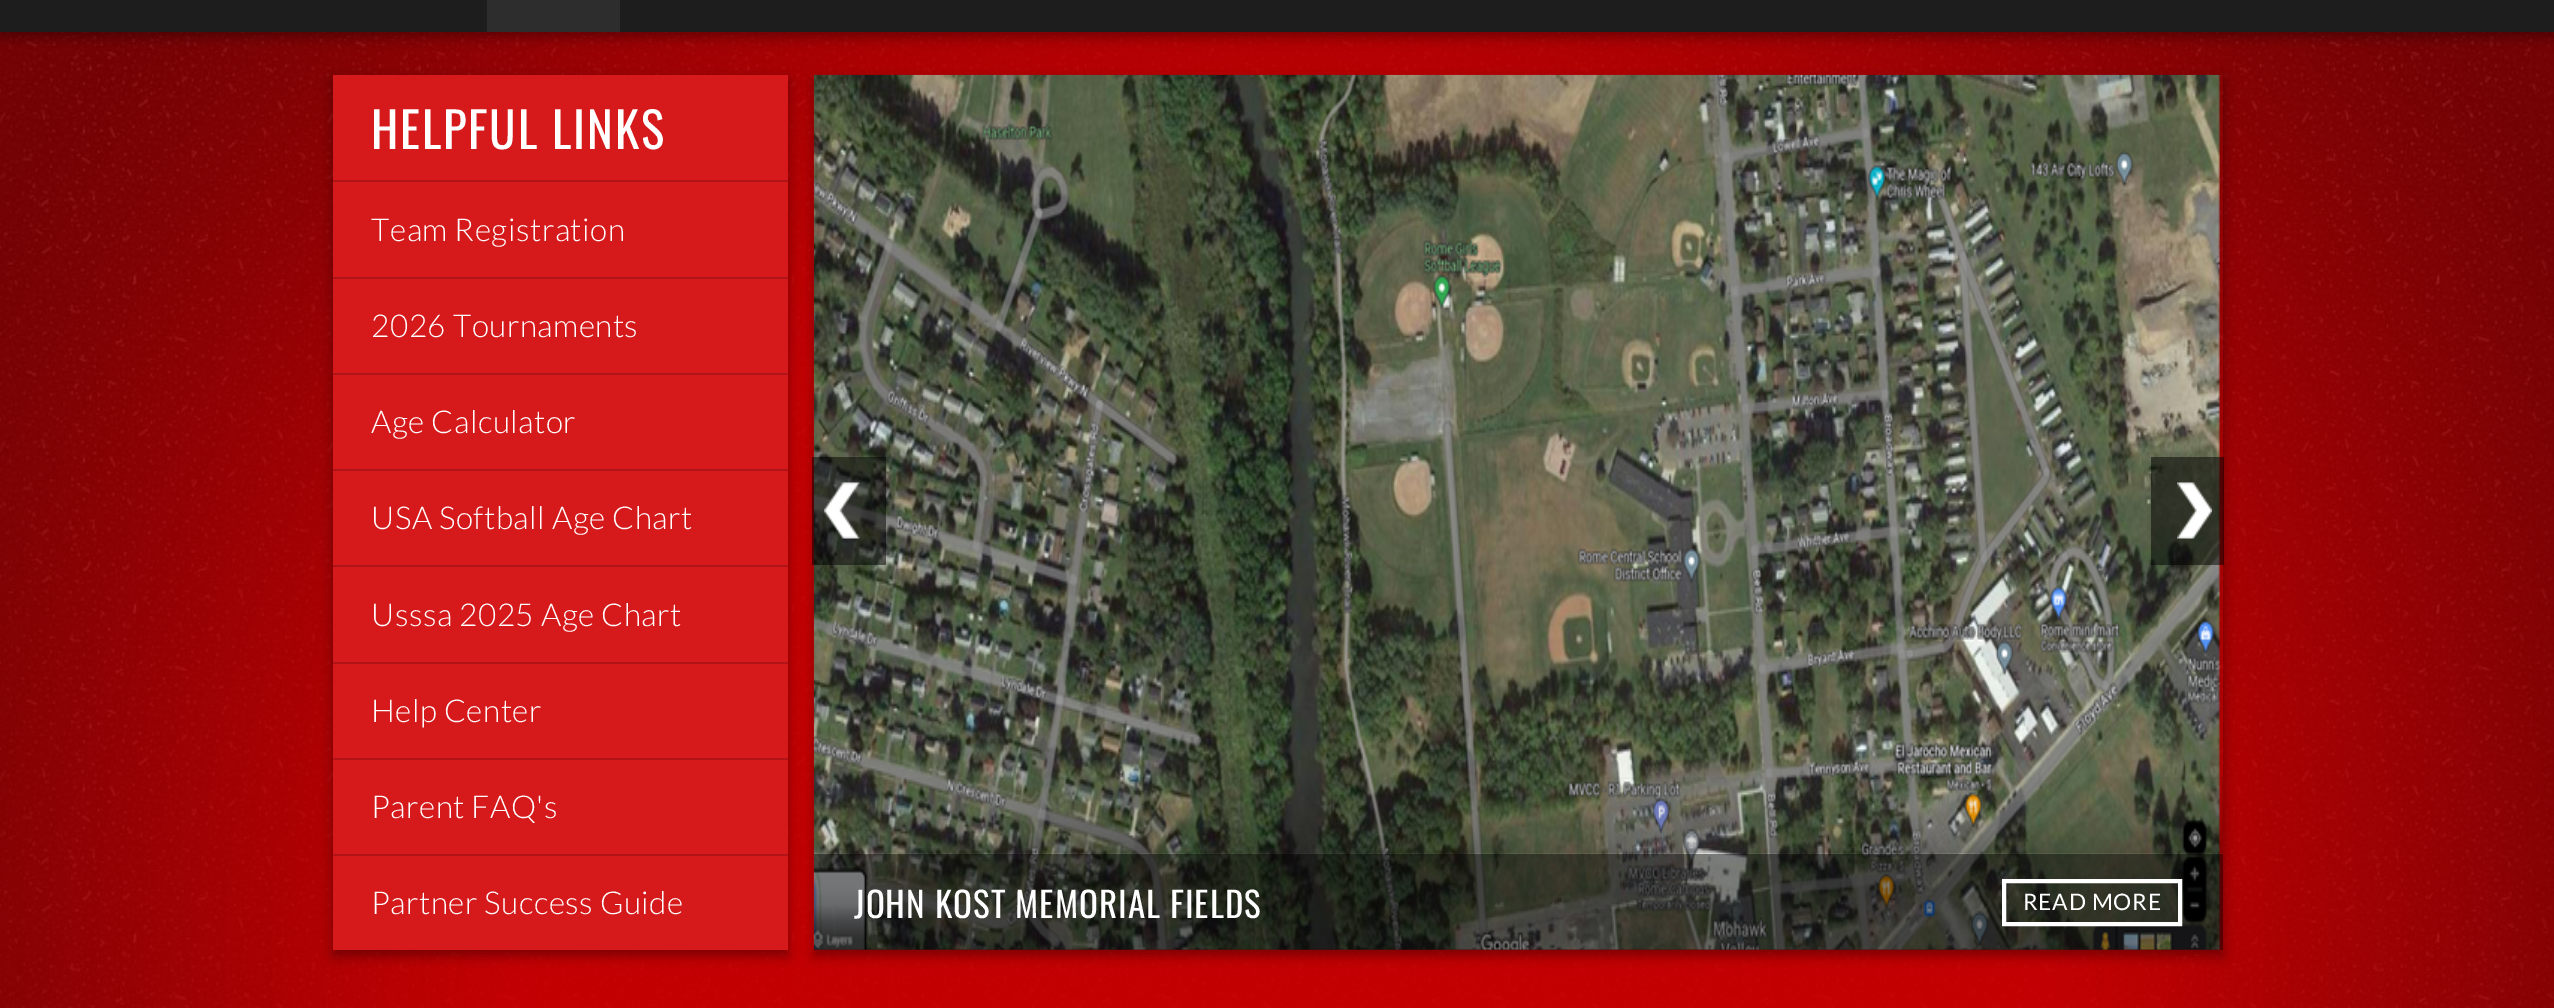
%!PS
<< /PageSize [2554 1008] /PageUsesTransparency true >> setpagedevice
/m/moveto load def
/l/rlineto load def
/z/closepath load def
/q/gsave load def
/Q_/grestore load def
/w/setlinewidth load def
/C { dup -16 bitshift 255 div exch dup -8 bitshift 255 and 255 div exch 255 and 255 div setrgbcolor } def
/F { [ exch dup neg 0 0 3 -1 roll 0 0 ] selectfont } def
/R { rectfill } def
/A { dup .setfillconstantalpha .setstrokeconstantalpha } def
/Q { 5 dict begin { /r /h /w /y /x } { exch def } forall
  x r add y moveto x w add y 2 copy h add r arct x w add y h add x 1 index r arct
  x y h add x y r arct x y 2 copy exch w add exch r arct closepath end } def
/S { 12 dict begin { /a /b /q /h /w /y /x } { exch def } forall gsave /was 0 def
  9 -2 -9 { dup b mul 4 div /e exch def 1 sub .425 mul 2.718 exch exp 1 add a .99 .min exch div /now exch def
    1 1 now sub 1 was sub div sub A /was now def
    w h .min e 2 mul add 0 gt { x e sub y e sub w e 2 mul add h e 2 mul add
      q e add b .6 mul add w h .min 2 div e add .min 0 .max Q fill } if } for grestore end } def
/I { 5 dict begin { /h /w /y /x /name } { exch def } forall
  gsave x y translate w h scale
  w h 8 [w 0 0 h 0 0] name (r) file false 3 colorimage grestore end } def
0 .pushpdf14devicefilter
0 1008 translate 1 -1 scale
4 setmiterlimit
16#FFFFFF C
0 0 2554 1008 R
(1.rgb) 0 32 2554 976 I
(2.rgb) 0 32 2554 976 I
16#000000 C
0 -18 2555 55 0 6 .35 S
16#1D1D1D C
0 0 2554 32 R
16#2D2D2D C
487 0 133 32 R
16#000000 C
333 81 455 875 0 6 .35 S
16#D6191B C
333 75 455 875 R
/Oswald-Regular 49 F
16#FFFFFF C
371 149 m 1.75 0 (HELPFUL LINKS) ashow
16#AF1516 C
333 180 455 2 R
/Lato-Light 31.5 F
16#FFFFFF C
371 241 m .5 0 (Team Registration) ashow
16#AF1516 C
333 277 455 2 R
16#FFFFFF C
371 337 m .5 0 (2026 Tournaments) ashow
16#AF1516 C
333 373 455 2 R
16#FFFFFF C
371 433 m .5 0 (Age Calculator) ashow
16#AF1516 C
333 469 455 2 R
16#FFFFFF C
371 529 m .5 0 (USA Softball Age Chart) ashow
16#AF1516 C
333 565 455 2 R
16#FFFFFF C
371 626 m .5 0 (Usssa 2025 Age Chart) ashow
16#AF1516 C
333 662 455 2 R
16#FFFFFF C
371 722 m .5 0 (Help Center) ashow
16#AF1516 C
333 758 455 2 R
16#FFFFFF C
371 818 m .5 0 (Parent FAQ's) ashow
16#AF1516 C
333 854 455 2 R
16#FFFFFF C
371 914 m .5 0 (Partner Success Guide) ashow
q
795 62 m 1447 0 l 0 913 l -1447 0 l z 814 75 m 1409 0 l 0 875 l -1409 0 l z eoclip newpath
16#000000 C
814 81 1409 875 0 6 .35 S
Q_
(6.rgb) 813 74 1407 876 I
(3.rgb) 813 777 1410 77 I
0.5 A
16#000000 C
812 457 74 108 R
1 A
(4.rgb) 824 482 36 57 I
0.5 A
2151 457 73 108 R
1 A
(5.rgb) 2177 482 35 57 I
0.5 A
814 854 1409 96 R
/Oswald-Regular 35 F
1 A
16#FFFFFF C
854 918 m 1.05 0 (JOHN KOST MEMORIAL FIELDS) ashow
4 w
2004 881 176 43 rectstroke
/Lato-Regular 22.75 F
2023 910 m .75 0 (READ MORE) ashow
.poppdf14devicefilter showpage
